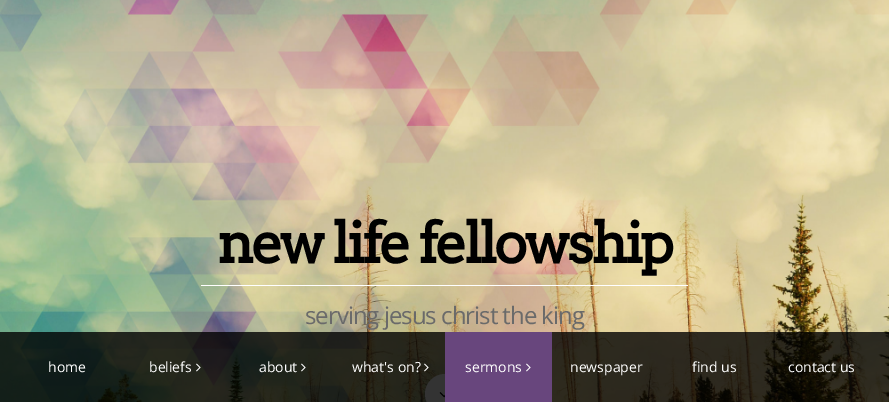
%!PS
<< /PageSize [889 402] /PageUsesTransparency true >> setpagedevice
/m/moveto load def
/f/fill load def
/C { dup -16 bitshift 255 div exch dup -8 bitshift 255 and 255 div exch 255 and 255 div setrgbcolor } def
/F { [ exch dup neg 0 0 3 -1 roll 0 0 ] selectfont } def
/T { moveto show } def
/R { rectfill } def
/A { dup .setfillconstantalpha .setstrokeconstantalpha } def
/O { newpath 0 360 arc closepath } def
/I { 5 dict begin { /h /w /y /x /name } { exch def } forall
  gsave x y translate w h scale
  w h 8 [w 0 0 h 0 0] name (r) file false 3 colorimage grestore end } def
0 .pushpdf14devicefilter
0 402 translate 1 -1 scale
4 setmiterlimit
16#FFFFFF C
0 0 889 402 R
(1.rgb) 0 0 889 402 I
201 285 487 1 R
/Arvo-Bold 56 F
16#000000 C
217 263 m -3 0 (new life fellowship) ashow
/OpenSans-Regular 24 F
16#6A6A6A C
305 324 m -1 0 (serving jesus christ the king) ashow
16#FFFFFF C
445 394 20 O f
(2.rgb) 439 392 6 6 I
0.8 A
16#000000 C
0 332 889 70 R
/OpenSans-Regular 14 F
1 A
16#FFFFFF C
(home) 48 372 T
(beliefs) 149 372 T
(3.rgb) 196 363 5 9 I
(about) 259 372 T
(4.rgb) 301 363 5 9 I
(what's on?) 352 372 T
(5.rgb) 424 363 5 9 I
16#68467D C
445 332 107 70 R
16#FFFFFF C
(sermons) 465 372 T
(6.rgb) 526 363 5 9 I
(newspaper) 570 372 T
(find us) 692 372 T
(contact us) 788 372 T
.poppdf14devicefilter showpage
